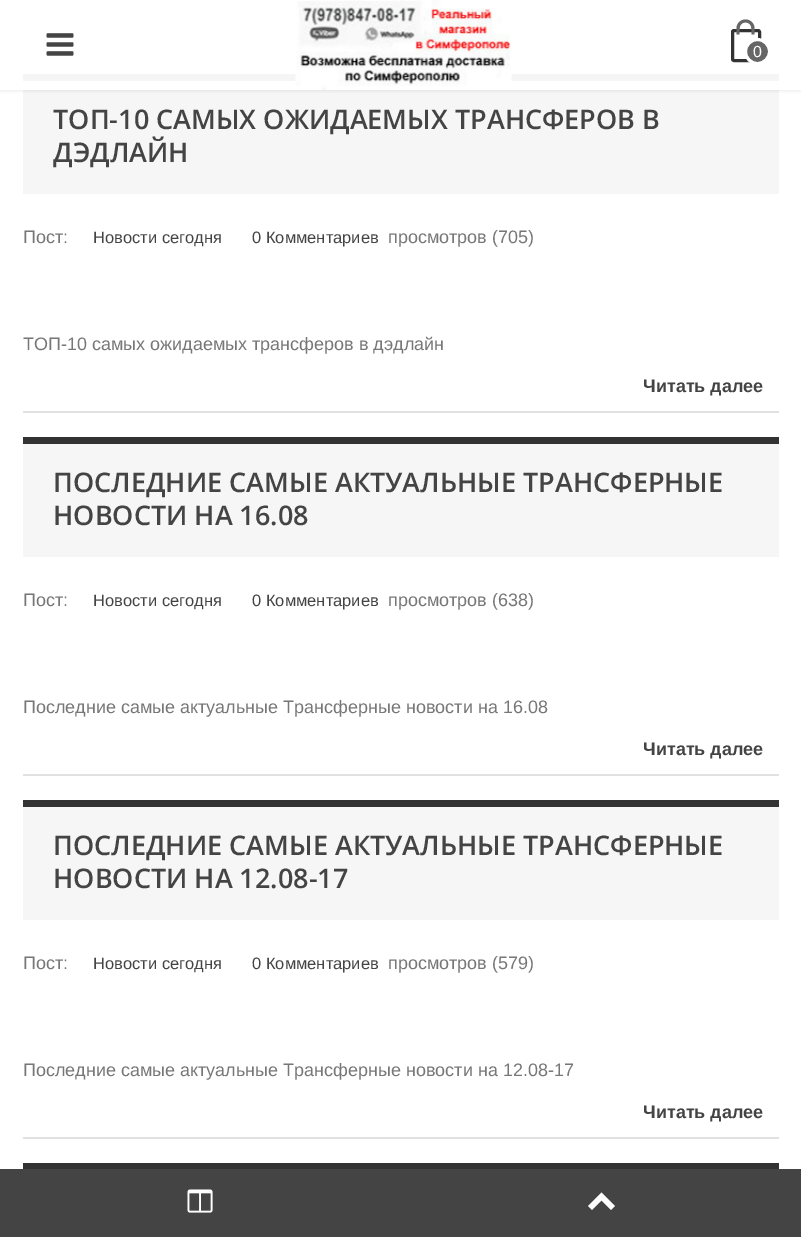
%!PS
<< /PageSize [801 1237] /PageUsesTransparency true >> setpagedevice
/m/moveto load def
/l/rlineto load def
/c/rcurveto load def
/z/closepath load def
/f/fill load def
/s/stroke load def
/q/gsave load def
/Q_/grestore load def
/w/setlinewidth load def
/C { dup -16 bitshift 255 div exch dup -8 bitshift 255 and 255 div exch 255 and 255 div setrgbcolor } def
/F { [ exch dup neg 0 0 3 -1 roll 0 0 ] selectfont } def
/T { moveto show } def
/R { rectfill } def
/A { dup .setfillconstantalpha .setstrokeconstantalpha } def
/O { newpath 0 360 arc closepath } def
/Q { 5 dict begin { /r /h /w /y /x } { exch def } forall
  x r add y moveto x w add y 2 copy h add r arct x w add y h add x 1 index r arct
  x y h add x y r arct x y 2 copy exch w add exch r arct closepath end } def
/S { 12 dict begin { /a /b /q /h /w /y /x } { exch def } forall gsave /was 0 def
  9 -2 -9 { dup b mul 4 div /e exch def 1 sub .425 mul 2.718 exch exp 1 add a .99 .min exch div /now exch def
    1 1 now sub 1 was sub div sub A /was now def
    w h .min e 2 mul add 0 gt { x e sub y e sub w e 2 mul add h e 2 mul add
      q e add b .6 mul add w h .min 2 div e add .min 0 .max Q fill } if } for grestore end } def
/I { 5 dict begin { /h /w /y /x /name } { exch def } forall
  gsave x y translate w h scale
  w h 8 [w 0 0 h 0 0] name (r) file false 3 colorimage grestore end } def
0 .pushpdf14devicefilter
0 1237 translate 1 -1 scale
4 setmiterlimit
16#FFFFFF C
0 0 801 1237 R
16#F6F6F6 C
23 90 756 104 R
16#F5F5F5 C
23 74 756 7 R
q
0 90 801 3 rectclip
16#000000 C
0 0 801 90 0 3 .1 S
Q_
(1.rgb) 46 33 28 23 I
(2.rgb) 295 0 217 90 I
16#333333 C
3 w
732.5 30.5 27 30 1.5 Q s
16#666666 C
745.5 19.5 m 5 0 9 4 9 9 c 0 6 l -18 0 l 0 -6 l 0 -5 4 -9 9 -9 c z 745.5 22.5 m 7 0 6 7.5 6 12 c -12 0 l 0 -4.5 -1 -12 6 -12 c z eofill
757.5 51.5 12 O q f Q_
16#FFFFFF C
s
/LiberationSans-Regular 16 F
(0) 753 57 T
16#E1E1E1 C
23 411 756 2 R
/OpenSans-SemiBold 27 F
16#444444 C
(ТОП-10 САМЫХ ОЖИДАЕМЫХ ТРАНСФЕРОВ В) 53 129 T
(ДЭДЛАЙН) 53 162 T
/LiberationSans-Regular 18 F
16#777777 C
(Пост:) 23 243 T
/LiberationSans-Regular 16.5 F
16#444444 C
(Новости сегодня) 93 243 T
(0 Комментариев) 252 243 T
/LiberationSans-Regular 18 F
16#777777 C
(просмотров \(705\)) 388 243 T
(ТОП-10 самых ожидаемых трансферов в дэдлайн) 23 350 T
/LiberationSans-Bold 18 F
16#444444 C
(Читать далее) 643 392 T
16#E1E1E1 C
23 774 756 2 R
16#F6F6F6 C
23 444 756 113 R
16#333333 C
23 437 756 7 R
/OpenSans-SemiBold 27 F
16#444444 C
(ПОСЛЕДНИЕ САМЫЕ АКТУАЛЬНЫЕ ТРАНСФЕРНЫЕ) 53 492 T
(НОВОСТИ НА 16.08) 53 525 T
/LiberationSans-Regular 18 F
16#777777 C
(Пост:) 23 606 T
/LiberationSans-Regular 16.5 F
16#444444 C
(Новости сегодня) 93 606 T
(0 Комментариев) 252 606 T
/LiberationSans-Regular 18 F
16#777777 C
(просмотров \(638\)) 388 606 T
(Последние самые актуальные Трансферные новости на 16.08) 23 713 T
/LiberationSans-Bold 18 F
16#444444 C
(Читать далее) 643 755 T
16#E1E1E1 C
23 1137 756 2 R
16#F6F6F6 C
23 807 756 113 R
16#333333 C
23 800 756 7 R
/OpenSans-SemiBold 27 F
16#444444 C
(ПОСЛЕДНИЕ САМЫЕ АКТУАЛЬНЫЕ ТРАНСФЕРНЫЕ) 53 855 T
(НОВОСТИ НА 12.08-17) 53 888 T
/LiberationSans-Regular 18 F
16#777777 C
(Пост:) 23 969 T
/LiberationSans-Regular 16.5 F
16#444444 C
(Новости сегодня) 93 969 T
(0 Комментариев) 252 969 T
/LiberationSans-Regular 18 F
16#777777 C
(просмотров \(579\)) 388 969 T
(Последние самые актуальные Трансферные новости на 12.08-17) 23 1076 T
/LiberationSans-Bold 18 F
16#444444 C
(Читать далее) 643 1118 T
16#333333 C
23 1163 756 6 R
16#444444 C
0 1169 801 68 R
(3.rgb) 187 1189 26 24 I
16#FFFFFF C
588 1206 m 13.5 -13.5 l 13.5 13.5 l -4 4 l -9.5 -9.5 l -9.5 9.5 l z f
.poppdf14devicefilter showpage
